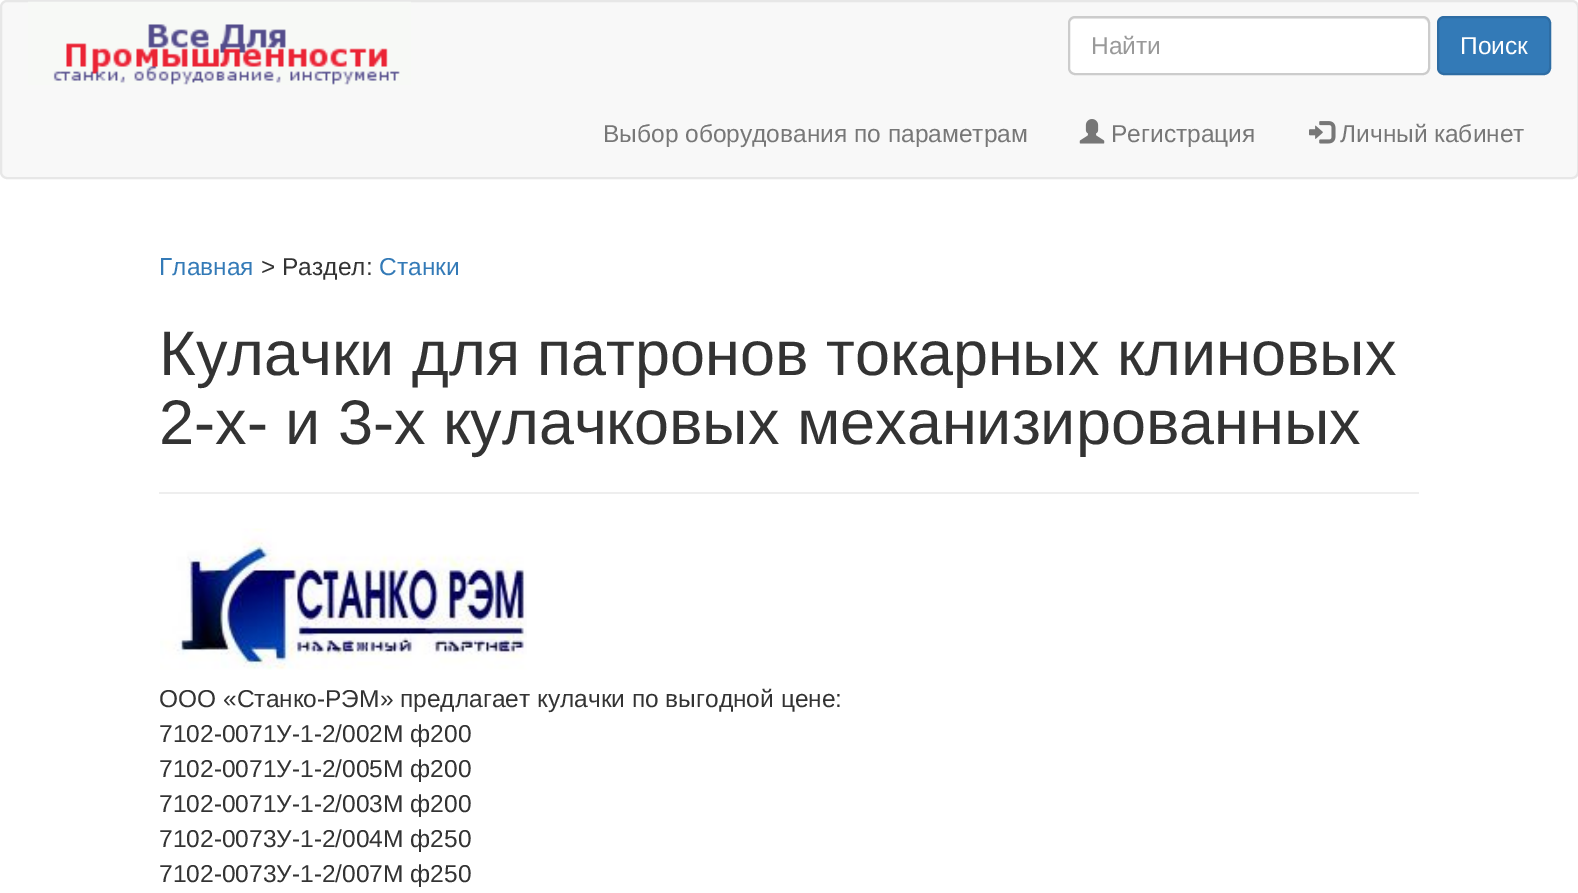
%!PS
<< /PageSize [1578 893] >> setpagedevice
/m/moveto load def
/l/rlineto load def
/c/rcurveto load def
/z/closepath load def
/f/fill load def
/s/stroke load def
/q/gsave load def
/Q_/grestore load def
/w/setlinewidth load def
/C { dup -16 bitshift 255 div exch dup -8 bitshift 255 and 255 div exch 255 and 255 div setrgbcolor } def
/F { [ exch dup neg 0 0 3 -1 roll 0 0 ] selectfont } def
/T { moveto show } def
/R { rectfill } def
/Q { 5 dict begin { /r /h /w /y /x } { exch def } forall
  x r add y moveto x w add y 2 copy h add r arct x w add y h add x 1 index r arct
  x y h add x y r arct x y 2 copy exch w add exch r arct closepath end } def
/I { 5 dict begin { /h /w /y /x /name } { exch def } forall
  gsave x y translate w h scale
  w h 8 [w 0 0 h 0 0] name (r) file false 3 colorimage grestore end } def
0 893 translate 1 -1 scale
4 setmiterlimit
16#FFFFFF C
0 0 1578 893 R
16#F8F8F8 C
1 1 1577 177 6 Q q f Q_
16#E7E7E7 C
2 w
s
(1.rgb) 28 1 383 84 I
16#FFFFFF C
1068 16 362 59 7 Q f
16#ECECEC C
1074 19 m 349 0 l 3 0 5 3 5 5 c 0 -1 l 0 -3 -2 -5 -5 -5 c -349 0 l -3 0 -5 2 -5 5 c 0 1 l 0 -2 3 -5 5 -5 c z f
16#CCCCCC C
1069 17 360 57 6 Q s
/LiberationSans-Regular 24.5 F
16#999999 C
(Найти) 1091 54 T
16#337AB7 C
1438 17 112 57 6 Q q f Q_
16#2E6DA4 C
s
16#FFFFFF C
(Поиск) 1460 54 T
16#777777 C
(Выбор оборудования по параметрам) 603 142 T
(2.rgb) 1079 119 26 25 I
(Регистрация) 1111 142 T
(3.rgb) 1309 121 27 23 I
(Личный кабинет) 1340 142 T
16#337AB7 C
(Главная) 159 275 T
16#333333 C
(> Раздел:) 261 275 T
16#337AB7 C
(Станки) 379 275 T
/LiberationSans-Regular 63 F
16#333333 C
(Кулачки для патронов токарных клиновых) 159 375 T
(2-х- и 3-х кулачковых механизированных) 159 444 T
16#EEEEEE C
159 492 1260 2 R
(4.rgb) 160 528 367 142 I
/LiberationSans-Regular 24.5 F
16#333333 C
(ООО «Станко-РЭМ» предлагает кулачки по выгодной цене:) 159 707 T
(7102-0071У-1-2/002М ф200) 159 742 T
(7102-0071У-1-2/005М ф200) 159 777 T
(7102-0071У-1-2/003М ф200) 159 812 T
(7102-0073У-1-2/004М ф250) 159 847 T
(7102-0073У-1-2/007М ф250) 159 882 T
showpage
